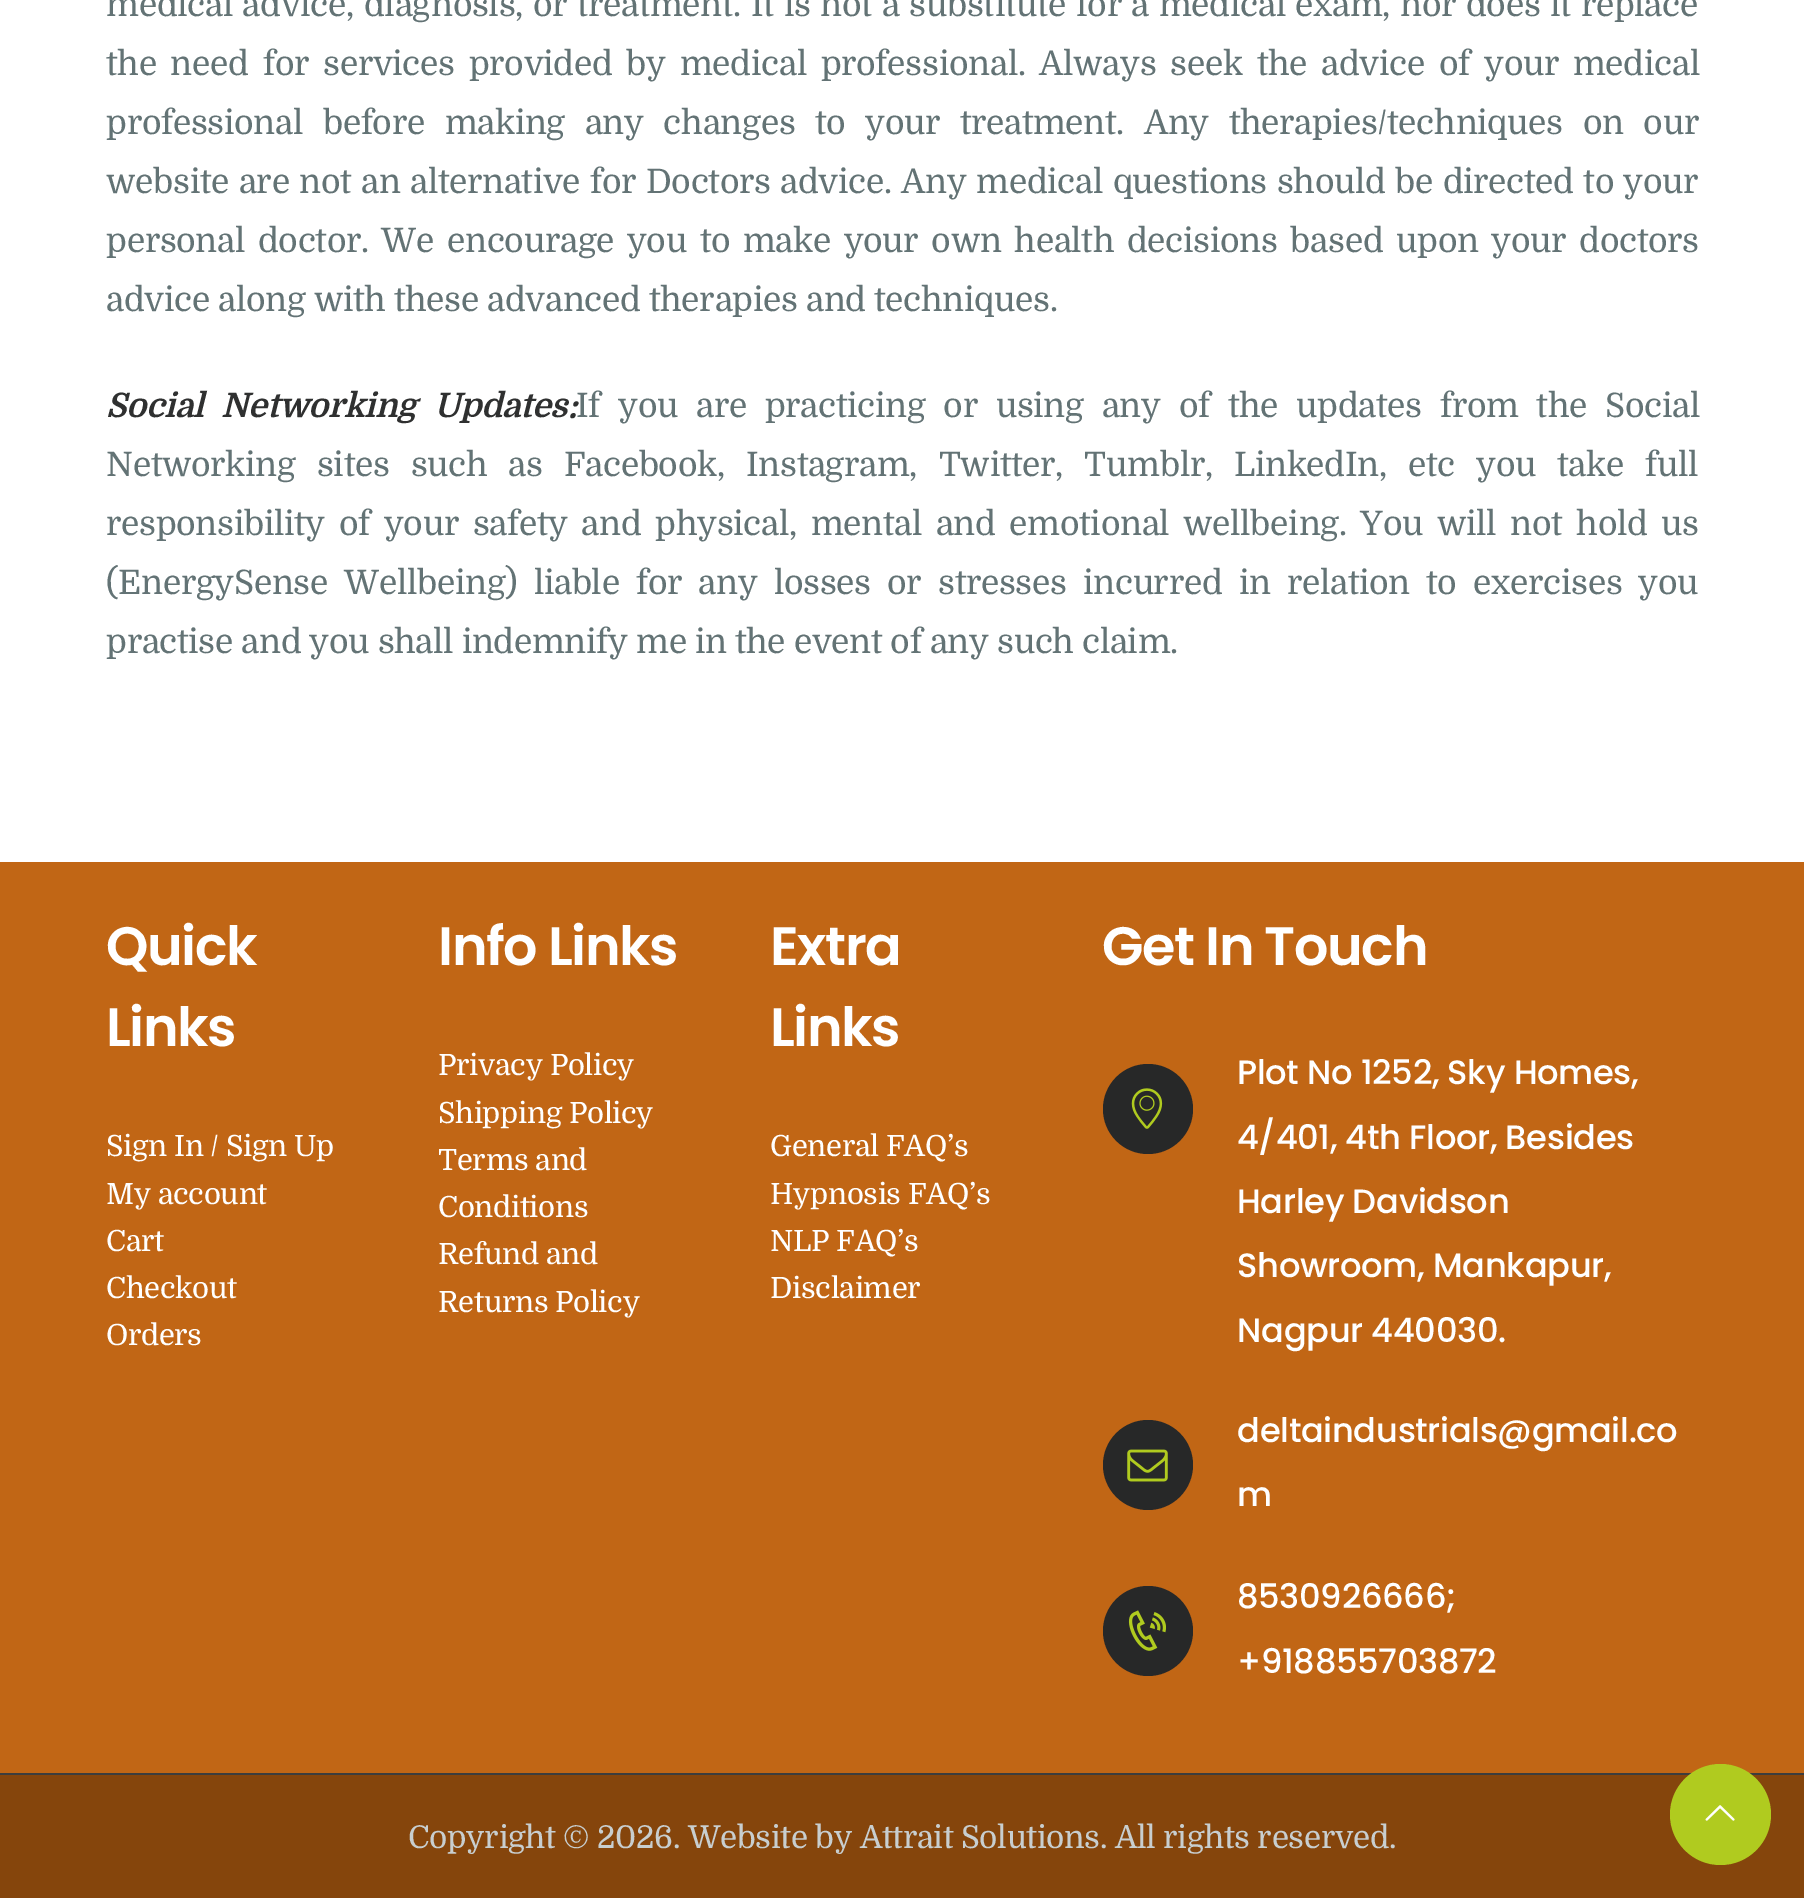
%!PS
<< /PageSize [1804 1898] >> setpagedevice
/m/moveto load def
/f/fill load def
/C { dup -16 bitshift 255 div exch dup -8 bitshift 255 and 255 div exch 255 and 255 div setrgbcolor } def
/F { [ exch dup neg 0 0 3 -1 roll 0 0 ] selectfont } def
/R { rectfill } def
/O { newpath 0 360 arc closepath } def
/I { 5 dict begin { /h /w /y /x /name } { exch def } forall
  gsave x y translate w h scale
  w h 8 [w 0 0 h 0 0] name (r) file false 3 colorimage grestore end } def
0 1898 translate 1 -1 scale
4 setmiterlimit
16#FFFFFF C
0 0 1804 1898 R
/Domine-Regular 33.7 F
16#637375 C
106 16 m 1.4 0 32 -.34 0 (medical advice, diagnosis, or treatment. It is not a substitute for a medical exam, nor does it replace) awidthshow
106 75 m 5.75 0 32 -.34 0 (the need for services provided by medical professional. Always seek the advice of your medical) awidthshow
106 134 m 11.5 0 32 -.34 0 (professional before making any changes to your treatment. Any therapies/techniques on our) awidthshow
106 193 m 1.4 0 32 -.34 0 (website are not an alternative for Doctors advice. Any medical questions should be directed to your) awidthshow
106 252 m 4.6 0 32 -.34 0 (personal doctor. We encourage you to make your own health decisions based upon your doctors) awidthshow
106 311 m -.34 0 (advice along with these advanced therapies and techniques.) ashow
/Domine-BoldItalic 33.7 F
16#2F3030 C
106 417 m 10 0 32 -.34 0 (Social Networking Updates:) awidthshow
/Domine-Regular 33.7 F
16#637375 C
576 417 m 9.75 0 32 -.34 0 (If you are practicing or using any of the updates from the Social) awidthshow
106 476 m 13 0 32 -.34 0 (Networking sites such as Facebook, Instagram, Twitter, Tumblr, LinkedIn, etc you take full) awidthshow
106 535 m 5.6 0 32 -.34 0 (responsibility of your safety and physical, mental and emotional wellbeing. You will not hold us) awidthshow
106 594 m -.34 0 (\(EnergySense) ashow
344 594 m 8.1 0 32 -.34 0 (Wellbeing\) liable for any losses or stresses incurred in relation to exercises you) awidthshow
106 653 m -.34 0 (practise and you shall indemnify me in the event of any such claim.) ashow
16#C16615 C
0 862 1804 911 R
/Poppins-SemiBold 54 F
16#FFFFFF C
106 965 m -1.4 0 (Quick) ashow
106 1046 m -1.4 0 (Links) ashow
/Domine-Regular 29.25 F
106 1156 m -.34 0 (Sign In / Sign Up) ashow
106 1204 m -.34 0 (My account) ashow
106 1251 m -.34 0 (Cart) ashow
106 1298 m -.34 0 (Checkout) ashow
106 1345 m -.34 0 (Orders) ashow
/Poppins-SemiBold 54 F
438 965 m -1.4 0 (Info Links) ashow
/Domine-Regular 29.25 F
438 1075 m -.34 0 (Privacy Policy) ashow
438 1123 m -.34 0 (Shipping Policy) ashow
438 1170 m -.34 0 (Terms and) ashow
438 1217 m -.34 0 (Conditions) ashow
438 1264 m -.34 0 (Refund and) ashow
438 1312 m -.34 0 (Returns Policy) ashow
/Poppins-SemiBold 54 F
770 965 m -1.4 0 (Extra) ashow
770 1046 m -1.4 0 (Links) ashow
/Domine-Regular 29.25 F
770 1156 m -.34 0 (General FAQ’s) ashow
770 1204 m -.34 0 (Hypnosis FAQ’s) ashow
770 1251 m -.34 0 (NLP FAQ’s) ashow
770 1298 m -.34 0 (Disclaimer) ashow
/Poppins-SemiBold 54 F
1102 965 m -1.4 0 (Get In Touch) ashow
16#272828 C
1148 1109 45 O f
(1.rgb) 1131 1088 32 41 I
/Poppins-Medium 33.75 F
16#FFFFFF C
1237 1084 m -.34 0 (Plot No 1252, Sky Homes,) ashow
1237 1149 m -.34 0 (4/401, 4th Floor, Besides) ashow
1237 1213 m -.34 0 (Harley Davidson) ashow
1237 1277 m -.34 0 (Showroom, Mankapur,) ashow
1237 1342 m -.34 0 (Nagpur 440030.) ashow
16#272828 C
1148 1465 45 O f
(2.rgb) 1127 1449 41 33 I
16#FFFFFF C
1237 1442 m -.34 0 (deltaindustrials@gmail.co) ashow
1237 1506 m -.34 0 (m) ashow
16#272828 C
1148 1631 45 O f
(3.rgb) 1128 1610 38 41 I
16#FFFFFF C
1237 1608 m -.34 0 (8530926666;) ashow
1237 1673 m -.34 0 (+918855703872) ashow
16#85450C C
0 1775 1804 123 R
16#3C3D3D C
0 1773 1804 2 R
/Domine-Regular 31.45 F
16#C8CECF C
408 1848 m -.34 0 (Copyright © 2026. Website by Attrait Solutions. All rights reserved.) ashow
16#B0CB1F C
1720.5 1814.5 50.5 O f
(4.rgb) 1705 1805 30 16 I
showpage
